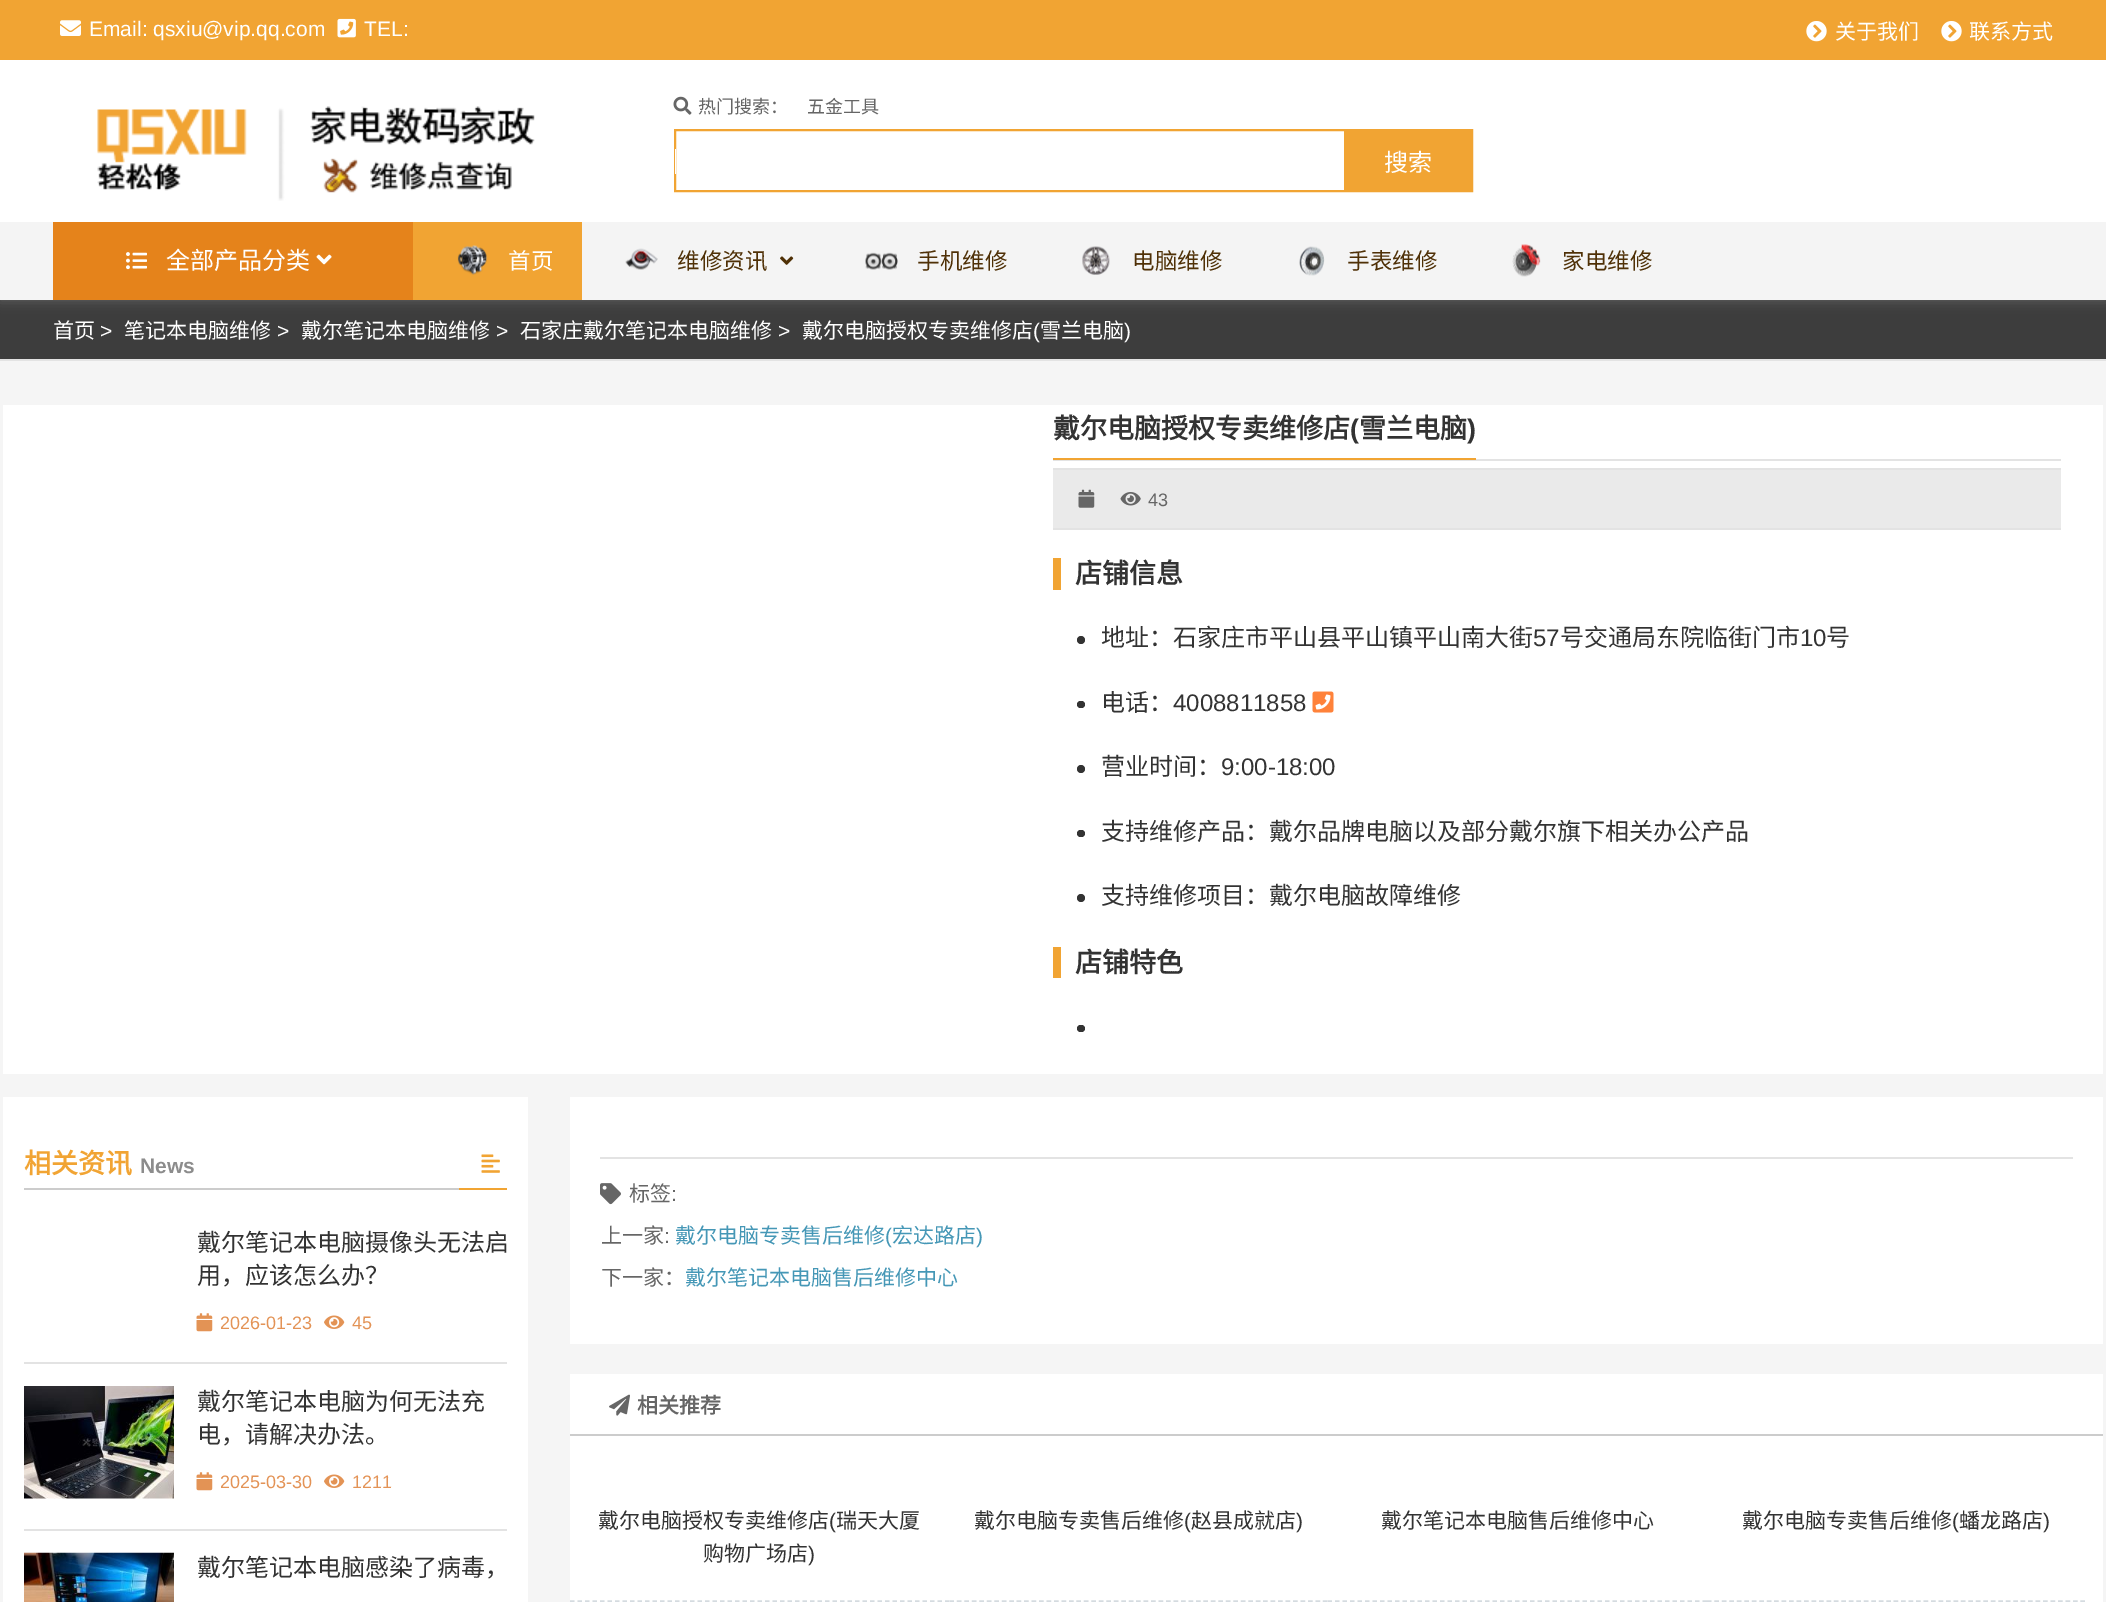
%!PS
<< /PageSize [2106 1602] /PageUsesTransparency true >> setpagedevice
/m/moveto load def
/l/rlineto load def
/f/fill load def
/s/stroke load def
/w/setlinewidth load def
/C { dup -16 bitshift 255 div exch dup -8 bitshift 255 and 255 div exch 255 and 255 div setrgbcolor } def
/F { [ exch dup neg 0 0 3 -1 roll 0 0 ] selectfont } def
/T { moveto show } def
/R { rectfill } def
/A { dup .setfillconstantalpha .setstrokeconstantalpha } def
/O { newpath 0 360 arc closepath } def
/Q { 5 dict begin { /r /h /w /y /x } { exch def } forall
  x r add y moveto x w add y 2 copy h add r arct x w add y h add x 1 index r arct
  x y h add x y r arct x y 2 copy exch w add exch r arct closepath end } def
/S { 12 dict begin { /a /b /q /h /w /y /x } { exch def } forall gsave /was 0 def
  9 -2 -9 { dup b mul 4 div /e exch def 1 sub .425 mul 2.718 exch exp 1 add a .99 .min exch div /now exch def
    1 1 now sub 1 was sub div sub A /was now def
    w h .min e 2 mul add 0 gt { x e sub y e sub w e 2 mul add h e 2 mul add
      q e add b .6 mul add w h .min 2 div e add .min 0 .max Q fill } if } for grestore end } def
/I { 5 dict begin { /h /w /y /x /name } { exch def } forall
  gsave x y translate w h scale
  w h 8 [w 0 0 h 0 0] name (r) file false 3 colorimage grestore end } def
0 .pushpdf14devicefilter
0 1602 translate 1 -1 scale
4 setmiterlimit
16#F5F5F5 C
0 0 2106 1602 R
16#3D3D3D C
0 300 2106 59 R
16#666666 C
0 0 2106 300 0 6 1 S
16#F1A433 C
0 0 2106 60 R
(1.rgb) 60 20 21 16 I
/LiberationSans-Regular 21 F
16#FFFFFF C
(Email: qsxiu@vip.qq.com) 89 36 T
(2.rgb) 337 18 19 20 I
(TEL:) 364 36 T
(3.rgb) 1806 21 21 21 I
/NotoSansCJKSC-Regular 21 F
(关于我们) 1835 39 T
(3.rgb) 1941 21 21 21 I
(联系方式) 1969 39 T
0 60 2106 162 R
(4.rgb) 97 106 438 95 I
(5.rgb) 673 96 19 19 I
/NotoSansCJKSC-Regular 18 F
16#666666 C
(热门搜索：) 698 113 T
(五金工具) 807 113 T
16#F1A433 C
2 w
675 130 797 61 rectstroke
16#FFFFFF C
675 149 1 25 R
16#F1A433 C
1344 131 127 59 R
/NotoSansCJKSC-Regular 24 F
16#FFFFFF C
(搜索) 1384 171 T
16#F4F4F4 C
0 222 2106 78 R
16#E5831B C
53 222 360 78 R
(6.rgb) 126 252 21 18 I
16#FFFFFF C
(全部产品分类) 166 269 T
(7.rgb) 316 254 16 11 I
16#F1A433 C
413 222 169 78 R
(8.rgb) 457 245 30 30 I
/NotoSansCJKSC-Regular 22.5 F
16#FFFFFF C
(首页) 508 269 T
(9.rgb) 625 248 33 22 I
16#4F3006 C
(维修资讯) 677 269 T
(10.rgb) 780 256 14 9 I
(11.rgb) 865 252 33 18 I
(手机维修) 917 269 T
(12.rgb) 1082 246 28 29 I
(电脑维修) 1132 269 T
(13.rgb) 1299 246 26 30 I
(手表维修) 1347 269 T
(14.rgb) 1512 244 29 33 I
(家电维修) 1562 269 T
16#E3E3E3 C
0 359 2106 2 R
/NotoSansCJKSC-Regular 21 F
16#FFFFFF C
(首页) 53 338 T
/LiberationSans-Regular 21 F
(>) 100 338 T
/NotoSansCJKSC-Regular 21 F
(笔记本电脑维修) 124 338 T
/LiberationSans-Regular 21 F
(>) 277 338 T
/NotoSansCJKSC-Regular 21 F
(戴尔笔记本电脑维修) 301 338 T
/LiberationSans-Regular 21 F
(>) 496 338 T
/NotoSansCJKSC-Regular 21 F
(石家庄戴尔笔记本电脑维修) 520 338 T
/LiberationSans-Regular 21 F
(>) 778 338 T
/NotoSansCJKSC-Regular 21 F
(戴尔电脑授权专卖维修店) 802 338 T
/LiberationSans-Regular 21 F
(\() 1033 338 T
/NotoSansCJKSC-Regular 21 F
(雪兰电脑) 1040 338 T
/LiberationSans-Regular 21 F
(\)) 1124 338 T
3 405 2100 669 R
16#E3E3E3 C
1053 459 1008 2 R
/NotoSansCJKSC-Bold 27 F
16#333333 C
(戴尔电脑授权专卖维修店) 1053 438 T
/LiberationSans-Bold 27 F
(\() 1350 438 T
/NotoSansCJKSC-Bold 27 F
(雪兰电脑) 1359 438 T
/LiberationSans-Bold 27 F
(\)) 1467 438 T
16#F1A433 C
1053 458 423 2 R
16#EAEAEA C
1053 470 1008 58 R
16#E3E3E3 C
1053 468 1008 2 R
1053 528 1008 2 R
(15.rgb) 1078 489 17 19 I
(16.rgb) 1120 492 21 14 I
/LiberationSans-Regular 18 F
16#666666 C
(43) 1148 506 T
16#F1A433 C
1053 558 8 32 R
/NotoSansCJKSC-Bold 27 F
16#333333 C
(店铺信息) 1075 583 T
1081 640 4 O f
/NotoSansCJKSC-Regular 24 F
(地址：石家庄市平山县平山镇平山南大街) 1101 646 T
/LiberationSans-Regular 24 F
(57) 1533 646 T
/NotoSansCJKSC-Regular 24 F
(号交通局东院临街门市) 1560 646 T
/LiberationSans-Regular 24 F
(10) 1800 646 T
/NotoSansCJKSC-Regular 24 F
(号) 1826 646 T
1077 701 8 7 3.5 Q f
(电话：) 1101 711 T
/LiberationSans-Regular 24 F
(4008811858) 1173 711 T
(17.rgb) 1312 691 22 22 I
1081 769 4 O f
/NotoSansCJKSC-Regular 24 F
(营业时间：) 1101 775 T
/LiberationSans-Regular 24 F
(9:00-18:00) 1221 775 T
1077 830 8 7 3.5 Q f
/NotoSansCJKSC-Regular 24 F
(支持维修产品：戴尔品牌电脑以及部分戴尔旗下相关办公产品) 1101 840 T
1081 898 4 O f
(支持维修项目：戴尔电脑故障维修) 1101 904 T
16#F1A433 C
1053 947 8 31 R
/NotoSansCJKSC-Bold 27 F
16#333333 C
(店铺特色) 1075 972 T
1077 1025 8 7 3.5 Q f
16#FFFFFF C
3 1097 525 505 R
16#F1A433 C
(相关资讯) 24 1173 T
/LiberationSans-Bold 21 F
16#8C8C8C C
(News) 140 1173 T
(18.rgb) 481 1154 19 19 I
16#CCCCCC C
24 1188 435 2 R
16#F1A433 C
459 1188 48 2 R
16#E3E3E3 C
24 1362 483 2 R
/NotoSansCJKSC-Regular 24 F
16#333333 C
(戴尔笔记本电脑摄像头无法启) 197 1251 T
(用，应该怎么办？) 197 1284 T
(19.rgb) 196 1313 17 19 I
/LiberationSans-Regular 18 F
16#E39356 C
(2026-01-23) 220 1329 T
(20.rgb) 324 1315 21 14 I
(45) 352 1329 T
16#E3E3E3 C
24 1529 483 2 R
(21.rgb) 24 1386 150 113 I
/NotoSansCJKSC-Regular 24 F
16#333333 C
(戴尔笔记本电脑为何无法充) 197 1410 T
(电，请解决办法。) 197 1443 T
(19.rgb) 196 1472 17 19 I
/LiberationSans-Regular 18 F
16#E39356 C
(2025-03-30) 220 1488 T
(20.rgb) 324 1474 21 14 I
(1211) 352 1488 T
(22.rgb) 24 1552 150 50 I
/NotoSansCJKSC-Regular 24 F
16#333333 C
(戴尔笔记本电脑感染了病毒，) 197 1576 T
16#FFFFFF C
570 1097 1533 247 R
16#E3E3E3 C
600 1157 1473 2 R
(23.rgb) 600 1183 21 22 I
/NotoSansCJKSC-Regular 21 F
16#666666 C
(标签) 629 1201 T
/LiberationSans-Regular 21 F
(:) 671 1201 T
/NotoSansCJKSC-Regular 21 F
(上一家) 601 1243 T
/LiberationSans-Regular 21 F
(:) 664 1243 T
/NotoSansCJKSC-Regular 21 F
16#4597B6 C
(戴尔电脑专卖售后维修) 675 1243 T
/LiberationSans-Regular 21 F
(\() 885 1243 T
/NotoSansCJKSC-Regular 21 F
(宏达路店) 892 1243 T
/LiberationSans-Regular 21 F
(\)) 976 1243 T
/NotoSansCJKSC-Regular 21 F
16#666666 C
(下一家：) 601 1285 T
16#4597B6 C
(戴尔笔记本电脑售后维修中心) 685 1285 T
16#FFFFFF C
570 1374 1533 228 R
16#CCCCCC C
570 1434 1533 2 R
(24.rgb) 609 1394 21 22 I
/NotoSansCJKSC-Bold 21 F
16#666666 C
(相关推荐) 637 1413 T
16#D5DBE0 C
1.5 w
[4.5 3] 0 setdash
570 1601 m 379.5 0 l s
/NotoSansCJKSC-Regular 21 F
16#333333 C
(戴尔电脑授权专卖维修店) 598 1528 T
/LiberationSans-Regular 21 F
(\() 829 1528 T
/NotoSansCJKSC-Regular 21 F
(瑞天大厦) 836 1528 T
(购物广场店) 703 1561 T
/LiberationSans-Regular 21 F
(\)) 808 1561 T
16#F6F7F8 C
949 1600 1 2 R
16#D5DBE0 C
[4.5 2.97] 0 setdash
949.5 1601 m 378 0 l s
/NotoSansCJKSC-Regular 21 F
16#333333 C
(戴尔电脑专卖售后维修) 974 1528 T
/LiberationSans-Regular 21 F
(\() 1184 1528 T
/NotoSansCJKSC-Regular 21 F
(赵县成就店) 1191 1528 T
/LiberationSans-Regular 21 F
(\)) 1296 1528 T
16#F6F7F8 C
1327 1600 1 2 R
16#D5DBE0 C
[4.5 3] 0 setdash
1327.5 1601 m 379.5 0 l s
/NotoSansCJKSC-Regular 21 F
16#333333 C
(戴尔笔记本电脑售后维修中心) 1381 1528 T
16#D5DBE0 C
[4.5 2.97] 0 setdash
1707 1601 m 378 0 l s
16#333333 C
(戴尔电脑专卖售后维修) 1742 1528 T
/LiberationSans-Regular 21 F
(\() 1952 1528 T
/NotoSansCJKSC-Regular 21 F
(蟠龙路店) 1959 1528 T
/LiberationSans-Regular 21 F
(\)) 2043 1528 T
.poppdf14devicefilter showpage
